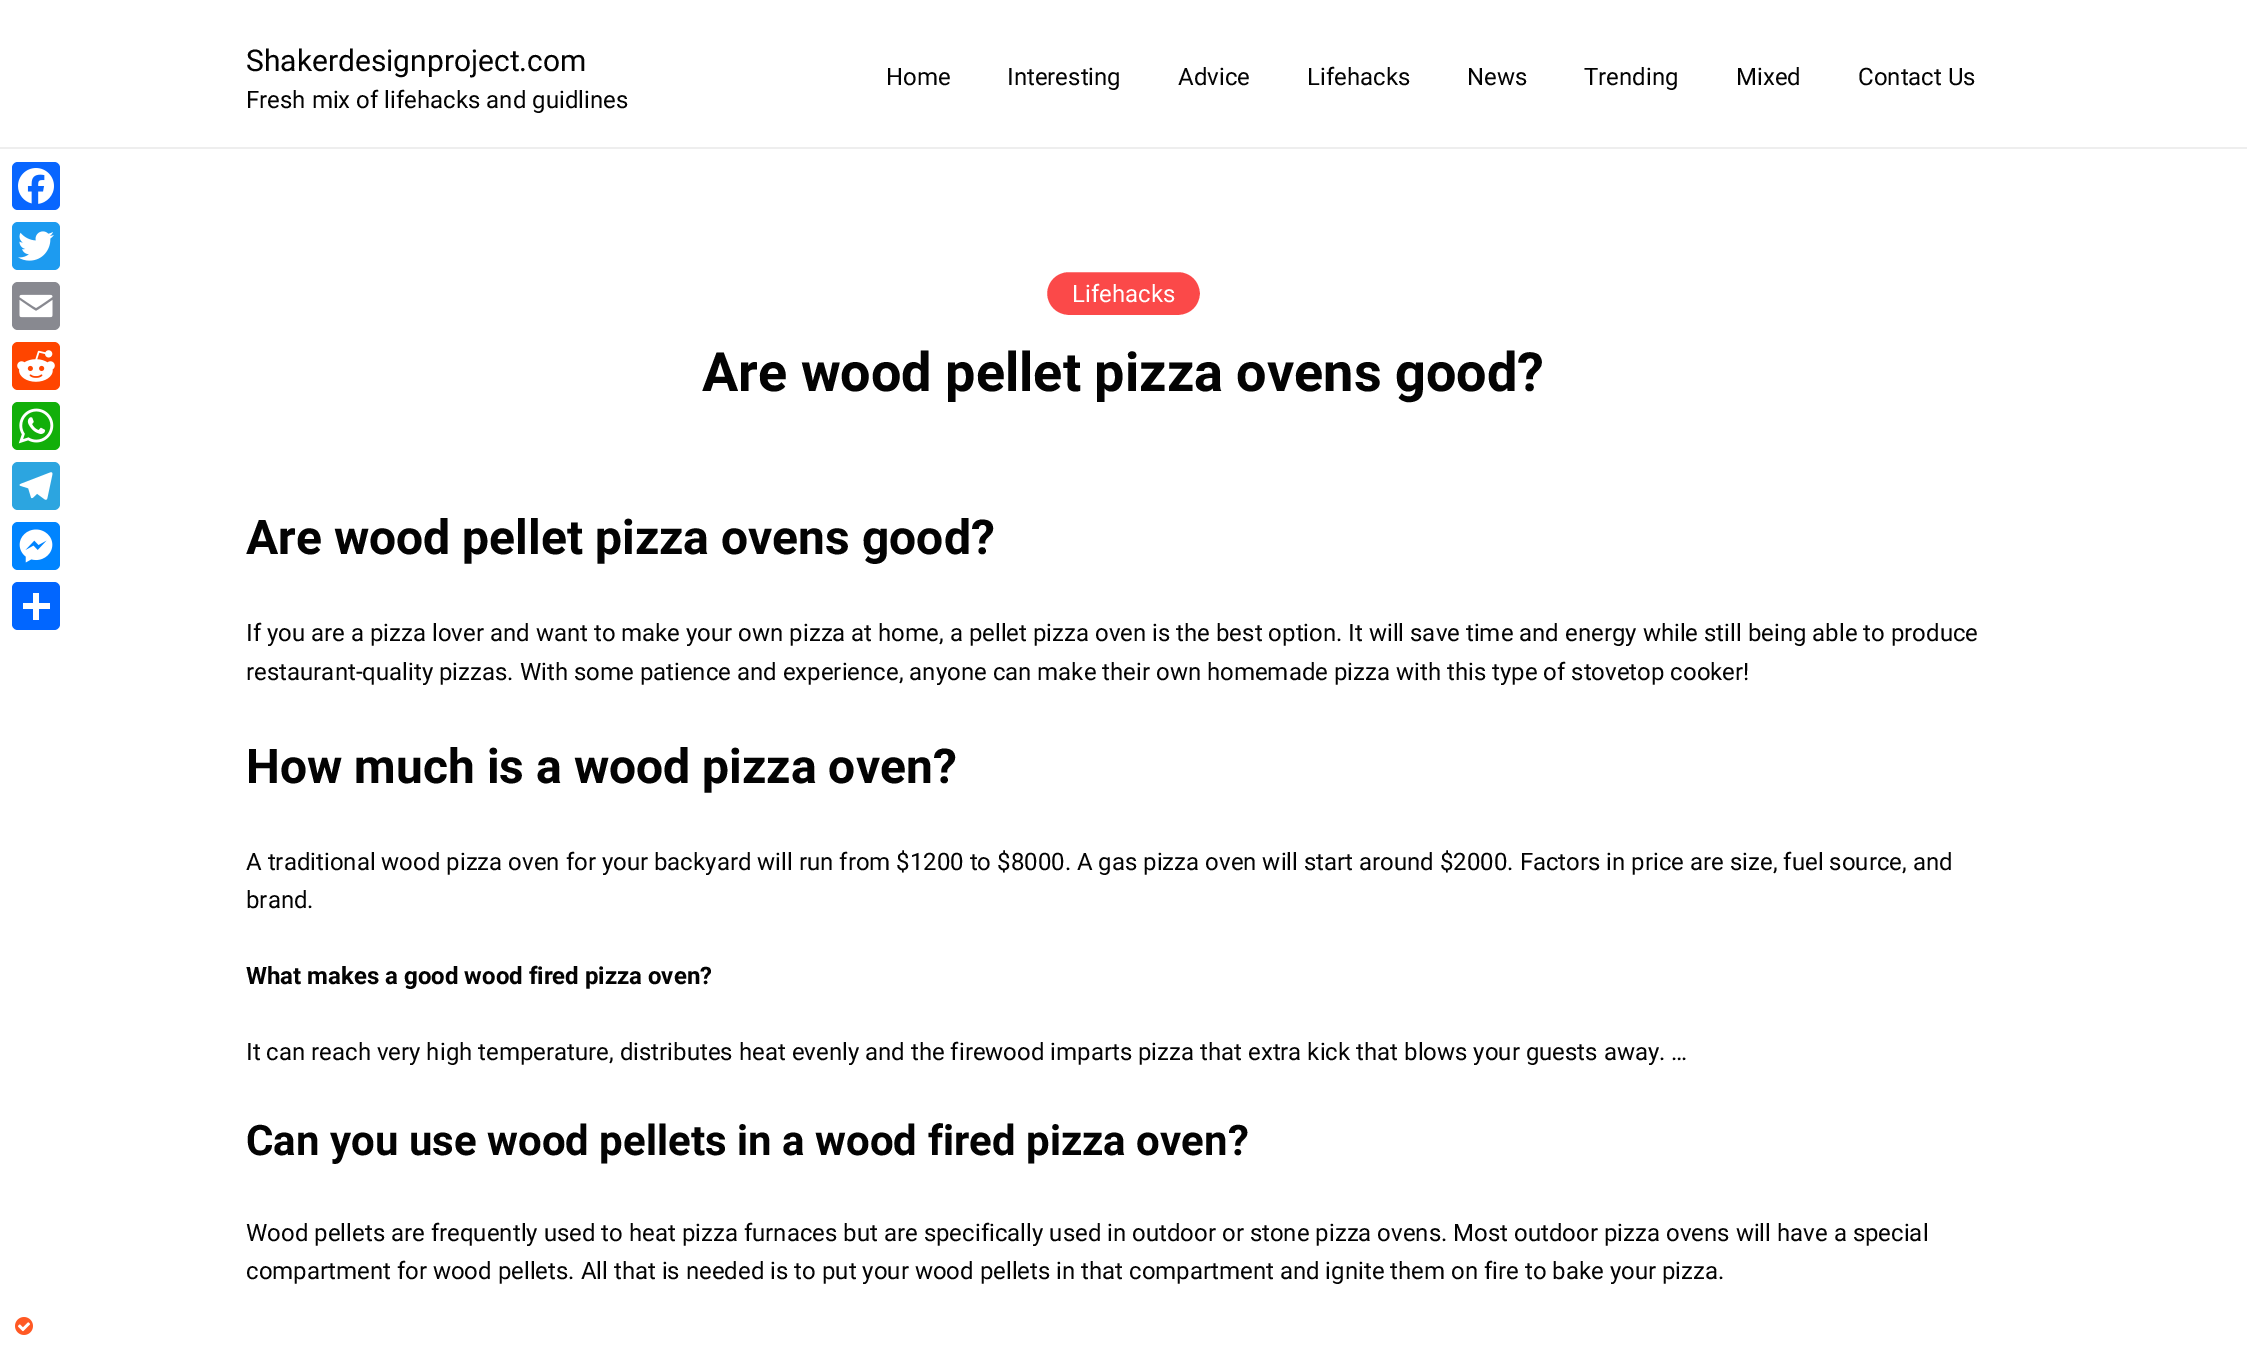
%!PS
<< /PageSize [2247 1354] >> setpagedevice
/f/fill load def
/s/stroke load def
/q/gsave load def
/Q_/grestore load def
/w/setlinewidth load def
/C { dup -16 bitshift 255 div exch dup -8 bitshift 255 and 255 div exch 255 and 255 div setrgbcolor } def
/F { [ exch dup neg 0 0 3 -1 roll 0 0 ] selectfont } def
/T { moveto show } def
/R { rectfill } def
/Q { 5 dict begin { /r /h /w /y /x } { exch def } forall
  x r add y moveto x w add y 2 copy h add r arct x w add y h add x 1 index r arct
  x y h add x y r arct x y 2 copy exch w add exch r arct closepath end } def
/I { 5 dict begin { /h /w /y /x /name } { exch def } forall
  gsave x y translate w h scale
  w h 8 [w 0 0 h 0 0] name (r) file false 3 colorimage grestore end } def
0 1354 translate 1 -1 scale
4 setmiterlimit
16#FFFFFF C
0 0 2247 1354 R
16#0866FF C
12 162 48 48 6 Q f
(1.rgb) 18 168 36 36 I
16#1D9BF0 C
12 222 48 48 6 Q f
(2.rgb) 18 231 36 30 I
16#888990 C
12 282 48 48 6 Q f
(3.rgb) 19 294 34 24 I
16#FF4500 C
12 342 48 48 6 Q f
(4.rgb) 17 350 38 32 I
16#12AF0A C
12 402 48 48 6 Q f
(5.rgb) 18 408 36 36 I
16#2CA5E0 C
12 462 48 48 6 Q f
(6.rgb) 19 472 34 28 I
16#0084FF C
12 522 48 48 6 Q f
(7.rgb) 19 529 34 34 I
16#0166FF C
12 582 48 48 6 Q f
16#FFFFFF C
33 593 6 27 R
23 603 27 6 R
16#EEEEEE C
0 147 2247 2 R
/Roboto-Regular 30 F
16#030303 C
(Shakerdesignproject.com) 246 71 T
/Roboto-Regular 24 F
(Fresh mix of lifehacks and guidlines) 246 108 T
(Home) 886 85 T
(Interesting) 1007 85 T
(Advice) 1178 85 T
(Lifehacks) 1307 85 T
(News) 1467 85 T
(Trending) 1584 85 T
(Mixed) 1736 85 T
(Contact Us) 1858 85 T
16#FB4949 C
1045.5 270.5 156 46 23 Q q f Q_
16#FFFFFF C
3 w
s
(Lifehacks) 1072 302 T
/Roboto-Bold 54 F
16#030303 C
(Are wood pellet pizza ovens good?) 702 391 T
/Roboto-Bold 48 F
(Are wood pellet pizza ovens good?) 246 554 T
/Roboto-Regular 24 F
(If you are a pizza lover and want to make your own pizza at home, a pellet pizza oven is the best option. It will save time and energy while still being able to produce) 246 641 T
(restaurant-quality pizzas. With some patience and experience, anyone can make their own homemade pizza with this type of stovetop cooker!) 246 680 T
/Roboto-Bold 48 F
(How much is a wood pizza oven?) 246 783 T
/Roboto-Regular 24 F
(A traditional wood pizza oven for your backyard will run from $1200 to $8000. A gas pizza oven will start around $2000. Factors in price are size, fuel source, and) 246 870 T
(brand.) 246 908 T
/Roboto-Bold 24 F
(What makes a good wood fired pizza oven?) 246 984 T
/Roboto-Regular 24 F
(It can reach very high temperature, distributes heat evenly and the firewood imparts pizza that extra kick that blows your guests away. …) 246 1060 T
/Roboto-Bold 42 F
(Can you use wood pellets in a wood fired pizza oven?) 246 1155 T
/Roboto-Regular 24 F
(Wood pellets are frequently used to heat pizza furnaces but are specifically used in outdoor or stone pizza ovens. Most outdoor pizza ovens will have a special) 246 1241 T
(compartment for wood pellets. All that is needed is to put your wood pellets in that compartment and ignite them on fire to bake your pizza.) 246 1279 T
(8.rgb) 15 1317 18 18 I
showpage
